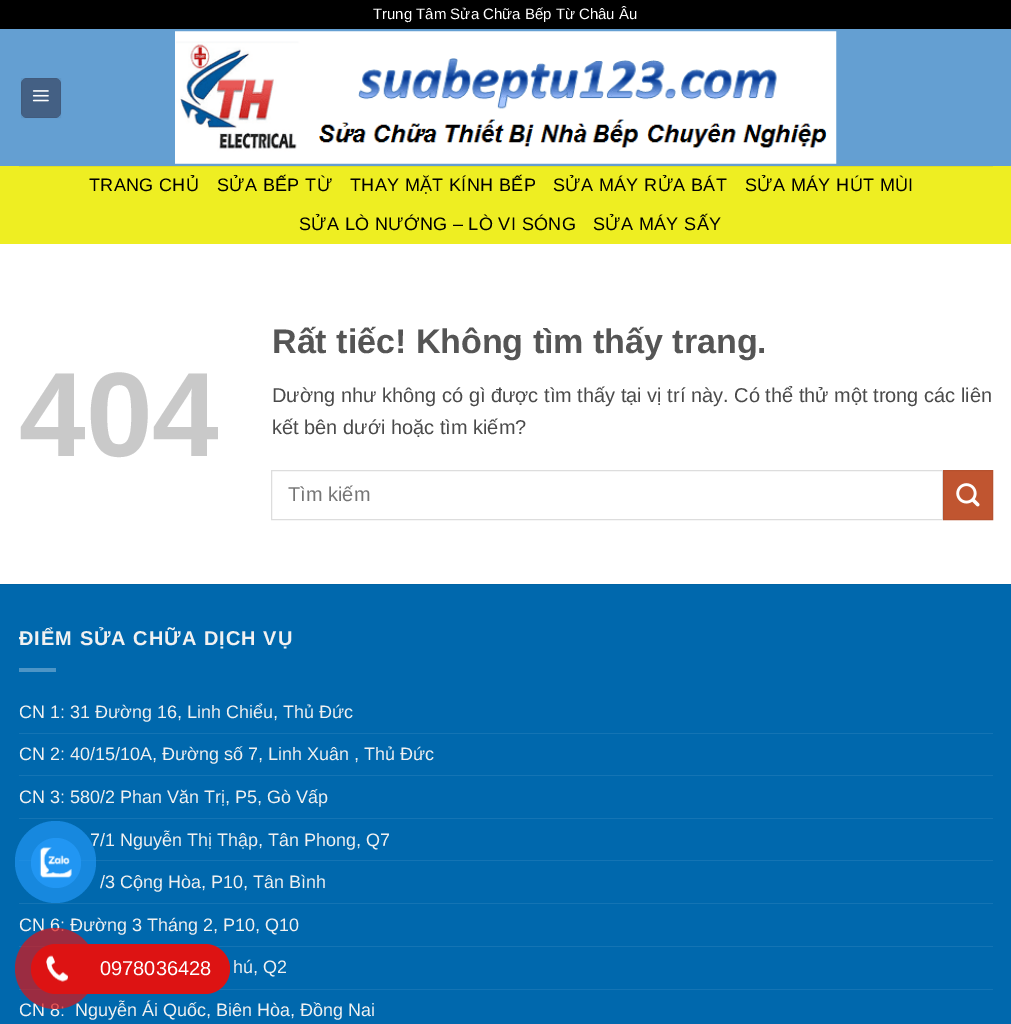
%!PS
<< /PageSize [1011 1024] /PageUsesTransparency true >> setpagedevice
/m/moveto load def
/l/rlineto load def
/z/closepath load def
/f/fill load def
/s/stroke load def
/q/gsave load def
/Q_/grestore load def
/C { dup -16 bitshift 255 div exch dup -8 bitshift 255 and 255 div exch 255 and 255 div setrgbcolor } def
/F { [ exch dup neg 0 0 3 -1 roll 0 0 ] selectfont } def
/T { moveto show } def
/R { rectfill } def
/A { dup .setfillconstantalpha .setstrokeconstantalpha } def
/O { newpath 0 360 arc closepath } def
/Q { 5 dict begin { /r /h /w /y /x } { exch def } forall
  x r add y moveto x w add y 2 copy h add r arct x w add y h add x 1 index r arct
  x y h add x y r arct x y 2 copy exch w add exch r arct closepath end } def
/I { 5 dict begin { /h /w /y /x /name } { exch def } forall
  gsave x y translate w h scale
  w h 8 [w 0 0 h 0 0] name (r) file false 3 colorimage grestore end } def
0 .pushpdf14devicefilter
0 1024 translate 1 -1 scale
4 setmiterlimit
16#FFFFFF C
0 0 1011 1024 R
16#000000 C
0 0 1011 29 R
/LiberationSans-Regular 15 F
16#FFFFFF C
(Trung Tâm Sửa Chữa Bếp Từ Châu Âu) 373 19 T
16#649FD2 C
0 29 1011 137 R
16#446084 C
21 78 40 40 6 Q f
0.05 A
16#000000 C
21.5 78.5 39 39 rectstroke
1 A
(1.rgb) 32 90 17 12 I
(2.rgb) 175 31 662 133 I
16#EEEE22 C
0 166 1011 78 R
16#DEDE26 C
19 166 974 1 R
/LiberationSans-Regular 18 F
16#000000 C
89 191 m .35 0 (TRANG CHỦ) ashow
217 191 m .35 0 (SỬA BẾP TỪ) ashow
350 191 m .35 0 (THAY MẶT KÍNH BẾP) ashow
553 191 m .35 0 (SỬA MÁY RỬA BÁT) ashow
745 191 m .35 0 (SỬA MÁY HÚT MÙI) ashow
299 230 m .35 0 (SỬA LÒ NƯỚNG – LÒ VI SÓNG) ashow
593 230 m .35 0 (SỬA MÁY SẤY) ashow
/LiberationSans-Bold 120 F
16#C9C9C9 C
(404) 19 456 T
/LiberationSans-Bold 34 F
16#555555 C
(Rất tiếc! Không tìm thấy trang.) 272 353 T
/LiberationSans-Regular 20 F
16#4A4A4A C
(Dường như không có gì được tìm thấy tại vị trí này. Có thể thử một trong các liên) 272 402 T
(kết bên dưới hoặc tìm kiếm?) 272 434 T
16#DDDDDD C
271.5 470.5 671 49 rectstroke
16#757575 C
(Tìm kiếm) 288 501 T
16#C05530 C
943.5 470.5 m 49 0 l 0 49 l -49 0 l z q f Q_
16#B6512E C
s
(3.rgb) 956 483 24 24 I
16#0068AD C
0 585 1011 439 R
16#0063A4 C
0 584 1011 1 R
/LiberationSans-Bold 20 F
16#F1F1F1 C
19 645 m 1 0 (ĐIỂM SỬA CHỮA DỊCH VỤ) ashow
16#4D95C6 C
19 668 37 4 R
16#1474B4 C
19 733 974 1 R
/LiberationSans-Regular 18 F
16#F1F1F1 C
(CN 1: 31 Đường 16, Linh Chiểu, Thủ Đức) 19 718 T
16#1474B4 C
19 775 974 1 R
16#F1F1F1 C
(CN 2: 40/15/10A, Đường số 7, Linh Xuân , Thủ Đức) 19 760 T
16#1474B4 C
19 818 974 1 R
16#F1F1F1 C
(CN 3: 580/2 Phan Văn Trị, P5, Gò Vấp) 19 803 T
16#1474B4 C
19 860 974 1 R
16#F1F1F1 C
(7/1 Nguyễn Thị Thập, Tân Phong, Q7) 90 846 T
16#1474B4 C
19 903 974 1 R
16#F1F1F1 C
(/3 Cộng Hòa, P10, Tân Bình) 100 888 T
16#1474B4 C
19 946 974 1 R
16#F1F1F1 C
(CN 6: Đường 3 Tháng 2, P10, Q10) 19 931 T
16#1474B4 C
19 989 974 1 R
16#F1F1F1 C
(hú, Q2) 233 973 T
(CN 8:  Nguyễn Ái Quốc, Biên Hòa, Đồng Nai) 19 1016 T
0.7 A
16#2196F3 C
15 821 81 82 40.5 Q f
1 A
56 863 25 O f
(4.rgb) 39 847 33 31 I
16#DD1313 C
38 944 192 50 25 Q f
0.7 A
55.5 968.5 40.5 O f
1 A
56 969 25 O f
(5.rgb) 46 955 22 27 I
/LiberationSans-Regular 20 F
16#FFFFFF C
(0978036428) 100 975 T
.poppdf14devicefilter showpage
